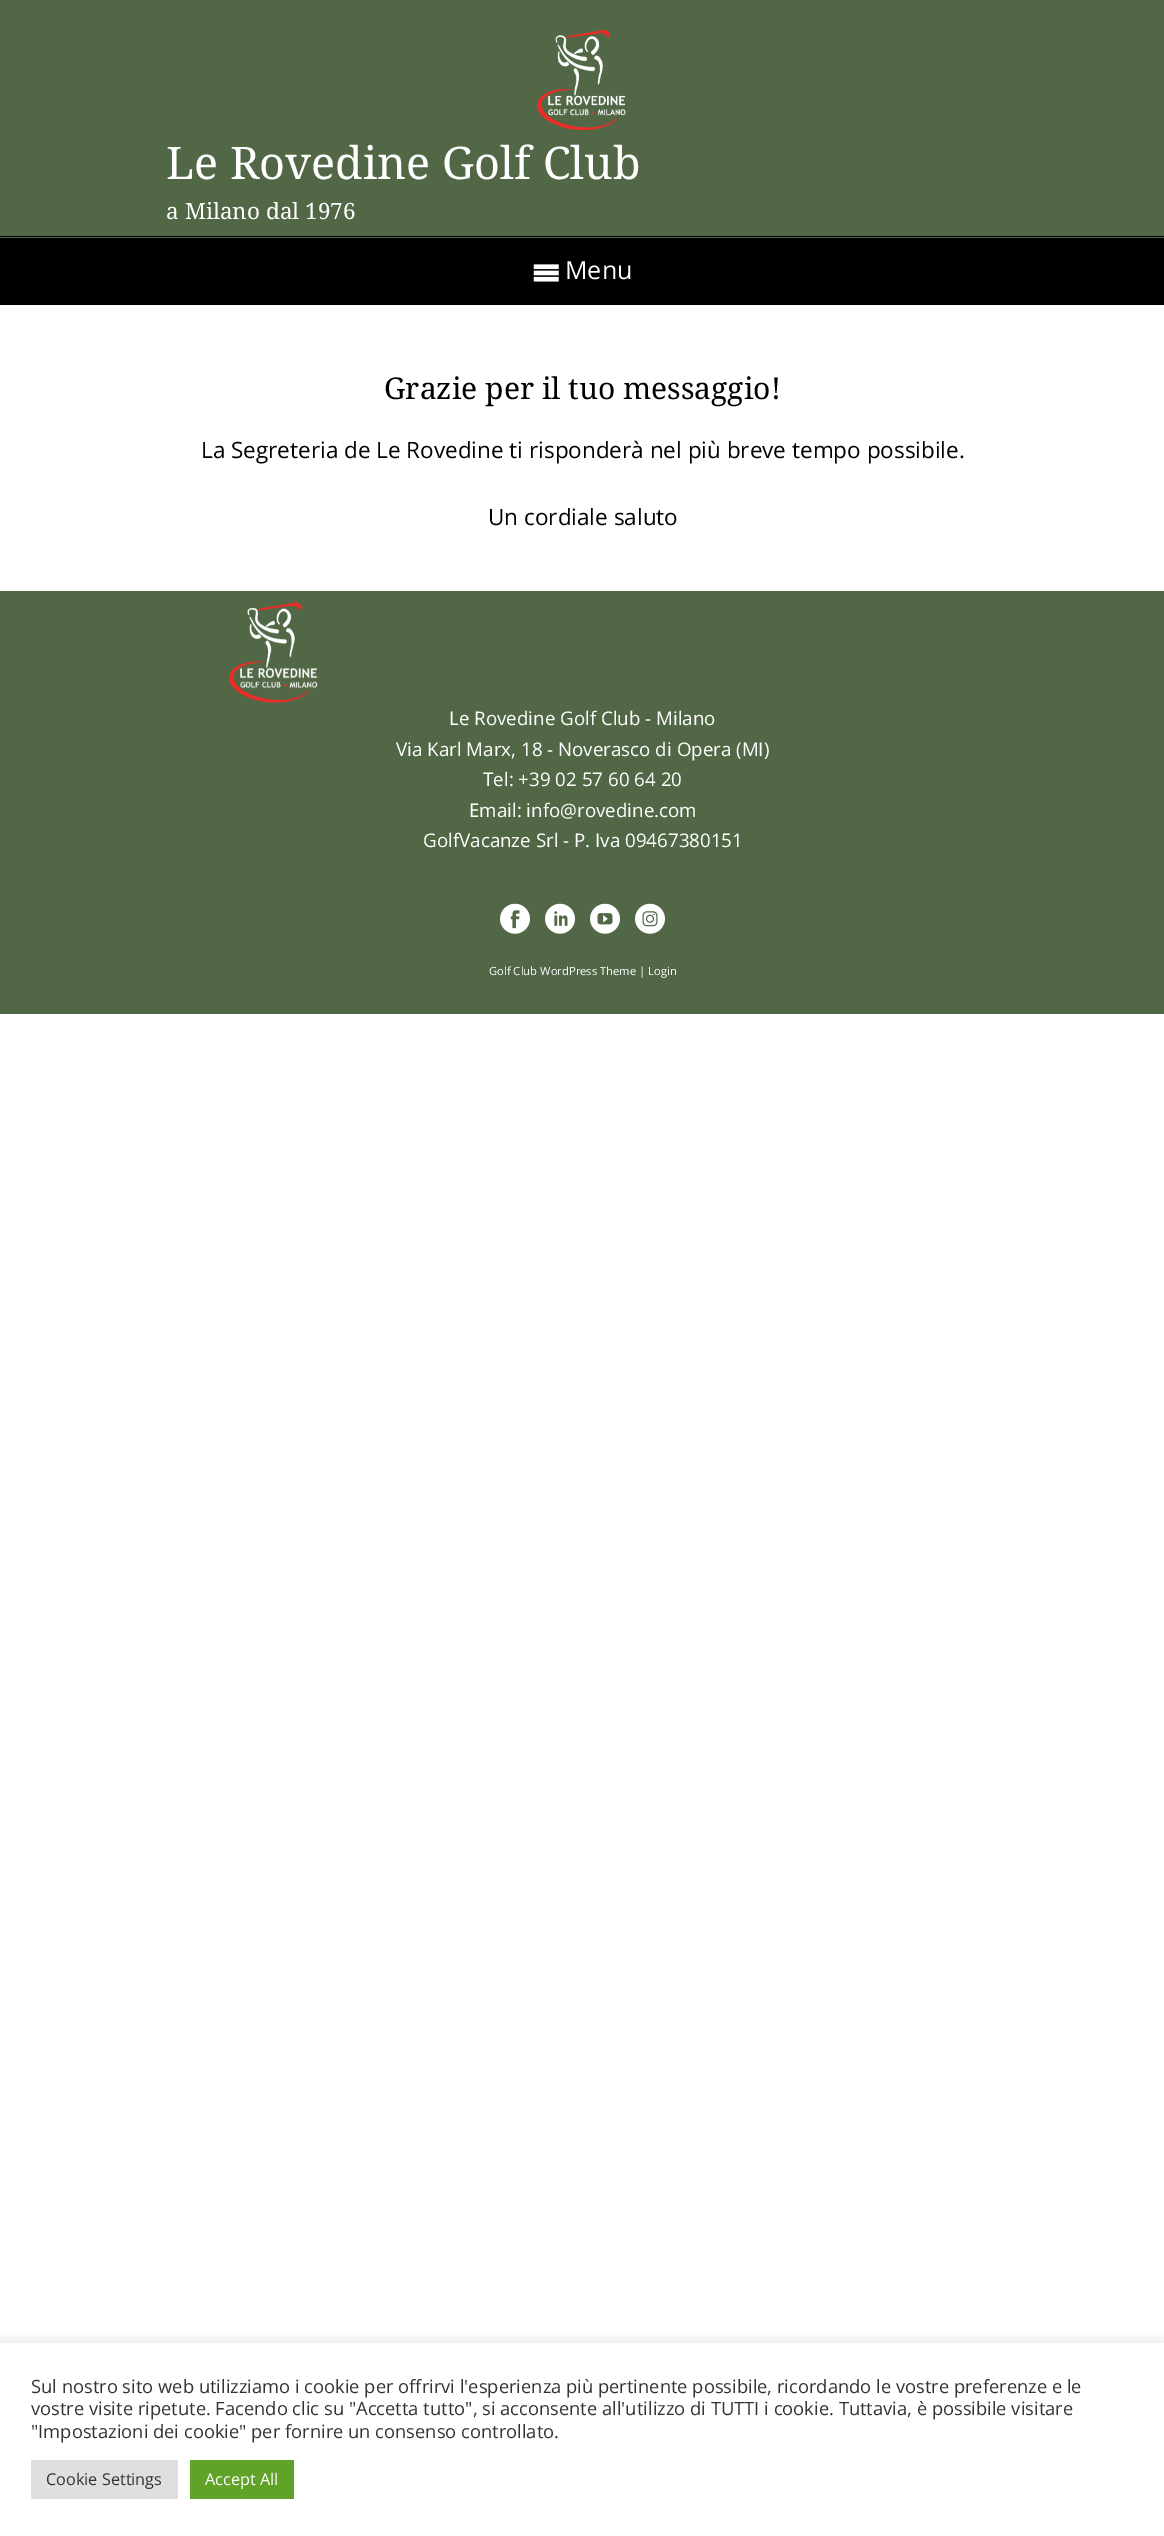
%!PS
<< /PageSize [1164 2536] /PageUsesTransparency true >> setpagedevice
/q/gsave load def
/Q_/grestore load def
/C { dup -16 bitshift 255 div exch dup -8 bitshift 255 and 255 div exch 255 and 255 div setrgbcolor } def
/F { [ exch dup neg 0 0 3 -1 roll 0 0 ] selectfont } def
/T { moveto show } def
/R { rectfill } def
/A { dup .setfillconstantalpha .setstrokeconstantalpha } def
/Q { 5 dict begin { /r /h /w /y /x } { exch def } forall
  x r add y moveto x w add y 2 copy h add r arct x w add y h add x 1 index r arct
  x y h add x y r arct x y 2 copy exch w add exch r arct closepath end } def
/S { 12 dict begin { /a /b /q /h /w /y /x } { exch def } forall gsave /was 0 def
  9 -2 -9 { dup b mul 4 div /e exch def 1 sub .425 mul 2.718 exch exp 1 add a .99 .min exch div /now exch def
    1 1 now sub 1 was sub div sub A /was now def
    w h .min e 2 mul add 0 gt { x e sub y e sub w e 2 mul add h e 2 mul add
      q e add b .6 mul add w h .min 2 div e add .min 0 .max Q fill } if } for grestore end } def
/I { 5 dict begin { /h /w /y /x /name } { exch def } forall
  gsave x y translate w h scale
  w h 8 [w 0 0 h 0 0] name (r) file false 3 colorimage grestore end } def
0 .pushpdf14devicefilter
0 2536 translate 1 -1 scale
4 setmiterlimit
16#FFFFFF C
0 0 1164 2536 R
16#516746 C
0 0 1164 238 R
(1.rgb) 537 30 89 100 I
/DroidSerif-Regular 45 F
16#FFFFFF C
(Le Rovedine Golf Club) 166 179 T
/DroidSerif-Regular 22.5 F
(a Milano dal 1976) 166 219 T
16#000000 C
0 238 1164 67 R
0 236 1164 1 R
(2.rgb) 533 264 26 18 I
/OpenSans-Regular 25 F
16#FFFFFF C
(Menu) 565 279 T
/DroidSerif-Regular 30 F
16#000000 C
(Grazie per il tuo messaggio!) 384 399 T
/OpenSans-Regular 22.5 F
(La Segreteria de Le Rovedine ti risponderà nel più breve tempo possibile.) 201 458 T
(Un cordiale saluto) 488 525 T
16#516746 C
0 591 1164 423 R
(3.rgb) 229 602 89 101 I
/OpenSans-Regular 18.75 F
16#FFFFFF C
(Le Rovedine Golf Club - Milano) 449 725 T
(Via Karl Marx, 18 - Noverasco di Opera \(MI\)) 396 756 T
(Tel: +39 02 57 60 64 20) 483 786 T
(Email: info@rovedine.com) 469 817 T
(GolfVacanze Srl - P. Iva 09467380151) 423 847 T
(4.rgb) 500 903 30 31 I
(5.rgb) 545 903 30 31 I
(6.rgb) 590 903 30 31 I
(7.rgb) 635 903 30 31 I
/OpenSans-Regular 11.25 F
(Golf Club WordPress Theme | Login) 489 975 T
q
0 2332 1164 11 rectclip
16#ACABAB C
0 2341 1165 194 0 6 .3 S
Q_
/OpenSans-Regular 18.33 F
16#333333 C
(Sul nostro sito web utilizziamo i cookie per offrirvi l'esperienza più pertinente possibile, ricordando le vostre preferenze e le) 31 2393 T
(vostre visite ripetute. Facendo clic su "Accetta tutto", si acconsente all'utilizzo di TUTTI i cookie. Tuttavia, è possibile visitare) 31 2415 T
("Impostazioni dei cookie" per fornire un consenso controllato.) 31 2438 T
16#DEDFE0 C
31 2460 147 39 R
/OpenSans-Regular 16.25 F
16#333333 C
(Cookie Settings) 46 2485 T
16#61A229 C
190 2460 104 39 R
16#FFFFFF C
(Accept All) 205 2485 T
.poppdf14devicefilter showpage
